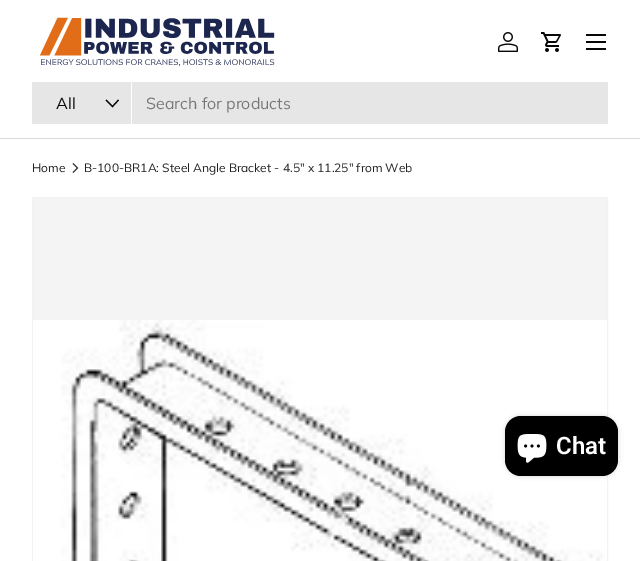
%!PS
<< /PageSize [640 561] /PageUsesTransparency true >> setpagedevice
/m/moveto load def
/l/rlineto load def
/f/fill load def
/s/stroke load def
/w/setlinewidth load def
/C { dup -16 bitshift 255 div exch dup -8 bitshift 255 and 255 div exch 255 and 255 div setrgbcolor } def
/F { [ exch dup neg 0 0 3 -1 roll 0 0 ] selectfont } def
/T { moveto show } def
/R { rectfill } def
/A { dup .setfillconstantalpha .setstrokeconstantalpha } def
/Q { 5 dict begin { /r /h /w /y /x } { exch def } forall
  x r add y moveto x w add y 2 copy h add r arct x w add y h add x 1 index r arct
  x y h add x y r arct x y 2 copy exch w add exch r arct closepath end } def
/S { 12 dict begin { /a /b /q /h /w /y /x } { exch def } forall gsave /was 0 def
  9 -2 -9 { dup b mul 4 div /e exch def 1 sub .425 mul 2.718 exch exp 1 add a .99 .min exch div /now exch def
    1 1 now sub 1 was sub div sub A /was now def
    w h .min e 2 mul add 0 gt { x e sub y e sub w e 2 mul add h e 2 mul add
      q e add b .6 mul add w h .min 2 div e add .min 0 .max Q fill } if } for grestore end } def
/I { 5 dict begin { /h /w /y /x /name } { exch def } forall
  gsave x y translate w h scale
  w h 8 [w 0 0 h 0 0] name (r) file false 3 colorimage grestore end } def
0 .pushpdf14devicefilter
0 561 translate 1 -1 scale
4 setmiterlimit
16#FFFFFF C
0 0 640 561 R
16#DADADA C
0 138 640 1 R
(1.rgb) 39 17 236 50 I
(2.rgb) 498 32 20 20 I
(3.rgb) 541 32 20 20 I
16#070707 C
586 34 20 2 R
586 48 20 2 R
586 41 20 2 R
16#E6E6E6 C
32 82 576 42 R
16#FFFFFF C
131 82 1 42 R
/Muli-Regular 16 F
16#070707 C
(All) 56 109 T
1.2 w
118.5 100 m -6 6.5 l -6.5 -6.5 l s
16#777777 C
(Search for products) 146 109 T
/Muli-Regular 12 F
16#202020 C
(Home) 32 172 T
.9 w
73 163.5 m 4.5 4.5 l -4.5 4.5 l s
(B-100-BR1A: Steel Angle Bracket - 4.5" x 11.25" from Web) 84 172 T
16#F4F4F4 C
33 198 574 122 R
16#F2F2F2 C
1 w
32.5 197.5 575 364 rectstroke
(4.rgb) 33 320 574 241 I
16#000000 C
505 416 113 60 16 2.5 .15 S
505 416 113 60 16 Q f
(5.rgb) 517 434 30 29 I
/Roboto-SemiBold 24 F
16#FFFFFF C
(Chat) 556 454 T
.poppdf14devicefilter showpage
